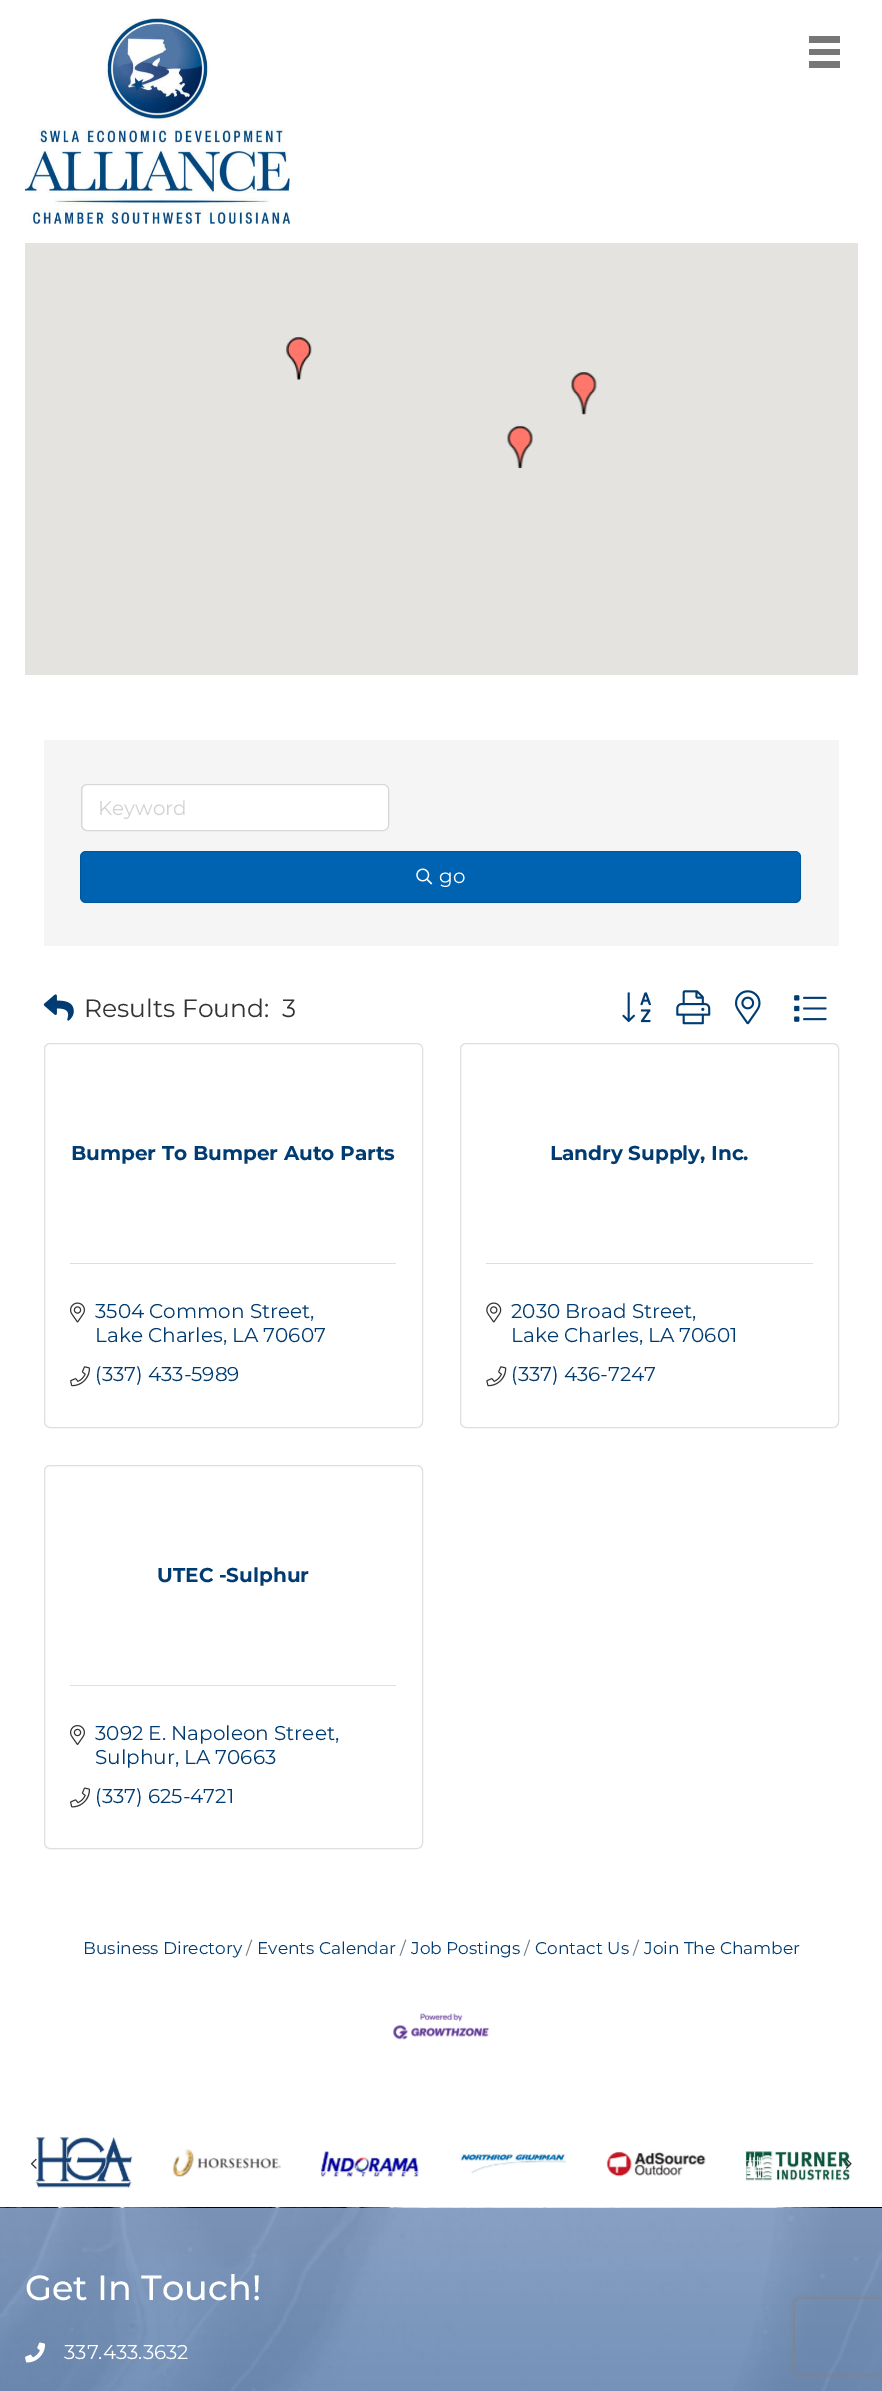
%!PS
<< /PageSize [882 2391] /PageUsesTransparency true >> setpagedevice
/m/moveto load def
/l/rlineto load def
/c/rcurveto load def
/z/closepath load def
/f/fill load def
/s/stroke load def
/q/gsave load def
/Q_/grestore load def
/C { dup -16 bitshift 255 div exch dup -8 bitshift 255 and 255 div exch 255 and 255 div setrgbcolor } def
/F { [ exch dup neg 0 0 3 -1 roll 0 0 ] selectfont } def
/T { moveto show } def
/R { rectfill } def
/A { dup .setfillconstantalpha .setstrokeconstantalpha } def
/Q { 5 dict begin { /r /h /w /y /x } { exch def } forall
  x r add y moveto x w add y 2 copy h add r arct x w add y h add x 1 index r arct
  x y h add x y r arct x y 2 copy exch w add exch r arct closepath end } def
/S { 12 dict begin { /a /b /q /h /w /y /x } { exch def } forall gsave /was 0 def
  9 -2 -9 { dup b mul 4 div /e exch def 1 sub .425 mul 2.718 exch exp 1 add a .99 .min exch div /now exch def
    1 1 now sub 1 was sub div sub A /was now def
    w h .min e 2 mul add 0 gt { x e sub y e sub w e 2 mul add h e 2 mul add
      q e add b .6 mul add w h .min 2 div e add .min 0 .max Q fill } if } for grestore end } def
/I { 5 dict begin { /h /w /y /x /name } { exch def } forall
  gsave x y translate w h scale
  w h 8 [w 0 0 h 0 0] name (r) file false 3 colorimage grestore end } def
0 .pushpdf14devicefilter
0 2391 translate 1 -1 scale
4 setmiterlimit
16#FFFFFF C
0 0 882 2391 R
(1.rgb) 25 18 265 206 I
16#777777 C
809 36 31 7 R
809 49 31 6 R
809 61 31 7 R
16#E5E3DF C
25 243 833 432 R
(2.rgb) 286 337 26 43 I
(3.rgb) 571 372 26 43 I
(4.rgb) 507 425 26 44 I
16#F5F5F5 C
44 740 795 206 R
16#FFFFFF C
83 785 305 45 5 Q f
0.12 A
16#000000 C
81.5 784.5 307 46 5.5 Q s
/Montserrat-Regular 20 F
1 A
16#D2D2D2 C
(Keyword) 98 815 T
16#0063B2 C
80 851 721 52 6 Q f
0.12 A
16#000000 C
80.5 851.5 720 51 5.5 Q s
1 A
(5.rgb) 416 868 17 17 I
16#FFFFFF C
(go) 439 883 T
(6.rgb) 43 994 31 27 I
/Montserrat-Regular 25 F
16#333333 C
(Results Found:) 84 1017 T
(3) 282 1017 T
(7.rgb) 622 992 29 31 I
(8.rgb) 676 990 35 35 I
(9.rgb) 735 990 26 35 I
(10.rgb) 794 995 33 27 I
16#DFDFDF C
44.5 1043.5 378 384 5.5 Q s
/Montserrat-Bold 20 F
16#003C71 C
(Bumper To Bumper Auto Parts) 71 1160 T
16#DFDFDF C
70 1263 326 1 R
(11.rgb) 70 1302 15 21 I
/Montserrat-Regular 20 F
16#003C71 C
(3504 Common Street,) 95 1318 T
(Lake Charles, LA 70607) 95 1342 T
(12.rgb) 70 1366 20 21 I
(\(337\) 433-5989) 95 1381 T
16#DFDFDF C
460.5 1043.5 378 384 5.5 Q s
/Montserrat-Bold 20 F
16#003C71 C
(Landry Supply, Inc.) 550 1160 T
16#DFDFDF C
486 1263 327 1 R
(13.rgb) 486 1302 16 21 I
/Montserrat-Regular 20 F
16#003C71 C
(2030 Broad Street,) 511 1318 T
(Lake Charles, LA 70601) 511 1342 T
(14.rgb) 486 1366 21 21 I
(\(337\) 436-7247) 511 1381 T
16#DFDFDF C
44.5 1465.5 378 383 5.5 Q s
/Montserrat-Bold 20 F
16#003C71 C
(UTEC -Sulphur) 157 1582 T
16#DFDFDF C
70 1685 326 1 R
(15.rgb) 70 1725 15 20 I
/Montserrat-Regular 20 F
16#003C71 C
(3092 E. Napoleon Street,) 95 1740 T
(Sulphur, LA 70663) 95 1764 T
(16.rgb) 70 1787 20 21 I
(\(337\) 625-4721) 95 1803 T
/Montserrat-Regular 17 F
(Business Directory) 83 1954 T
16#6C757D C
(/) 246 1954 T
16#003C71 C
(Events Calendar) 257 1954 T
16#6C757D C
(/) 400 1954 T
16#003C71 C
(Job Postings) 411 1954 T
16#6C757D C
(/) 524 1954 T
16#003C71 C
(Contact Us) 535 1954 T
16#6C757D C
(/) 633 1954 T
16#003C71 C
(Join The Chamber) 644 1954 T
(17.rgb) 393 2013 97 27 I
(19.rgb) 34 2137 99 52 I
(18.rgb) 30 2158 7 11 I
(20.rgb) 172 2149 109 28 I
(21.rgb) 320 2151 99 27 I
(22.rgb) 460 2153 107 21 I
(23.rgb) 606 2151 100 26 I
(24.rgb) 745 2151 106 30 I
(25.rgb) 845 2158 7 11 I
(26.rgb) 0 2207 882 184 I
/Montserrat-Medium 35 F
16#FFFFFF C
(Get In Touch!) 25 2300 T
(27.rgb) 25 2342 20 21 I
/Montserrat-Regular 20 F
(337.433.3632) 64 2359 T
q
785 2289 m 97 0 l 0 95 l -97 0 l z 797.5 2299 m 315 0 l 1.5 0 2.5 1 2.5 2.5 c 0 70 l 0 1.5 -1 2.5 -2.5 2.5 c -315 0 l -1.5 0 -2.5 -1 -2.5 -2.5 c 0 -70 l 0 -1.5 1 -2.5 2.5 -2.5 c z eoclip newpath
16#808080 C
795 2299 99 75 2.5 3 1 S
Q_
.poppdf14devicefilter showpage
